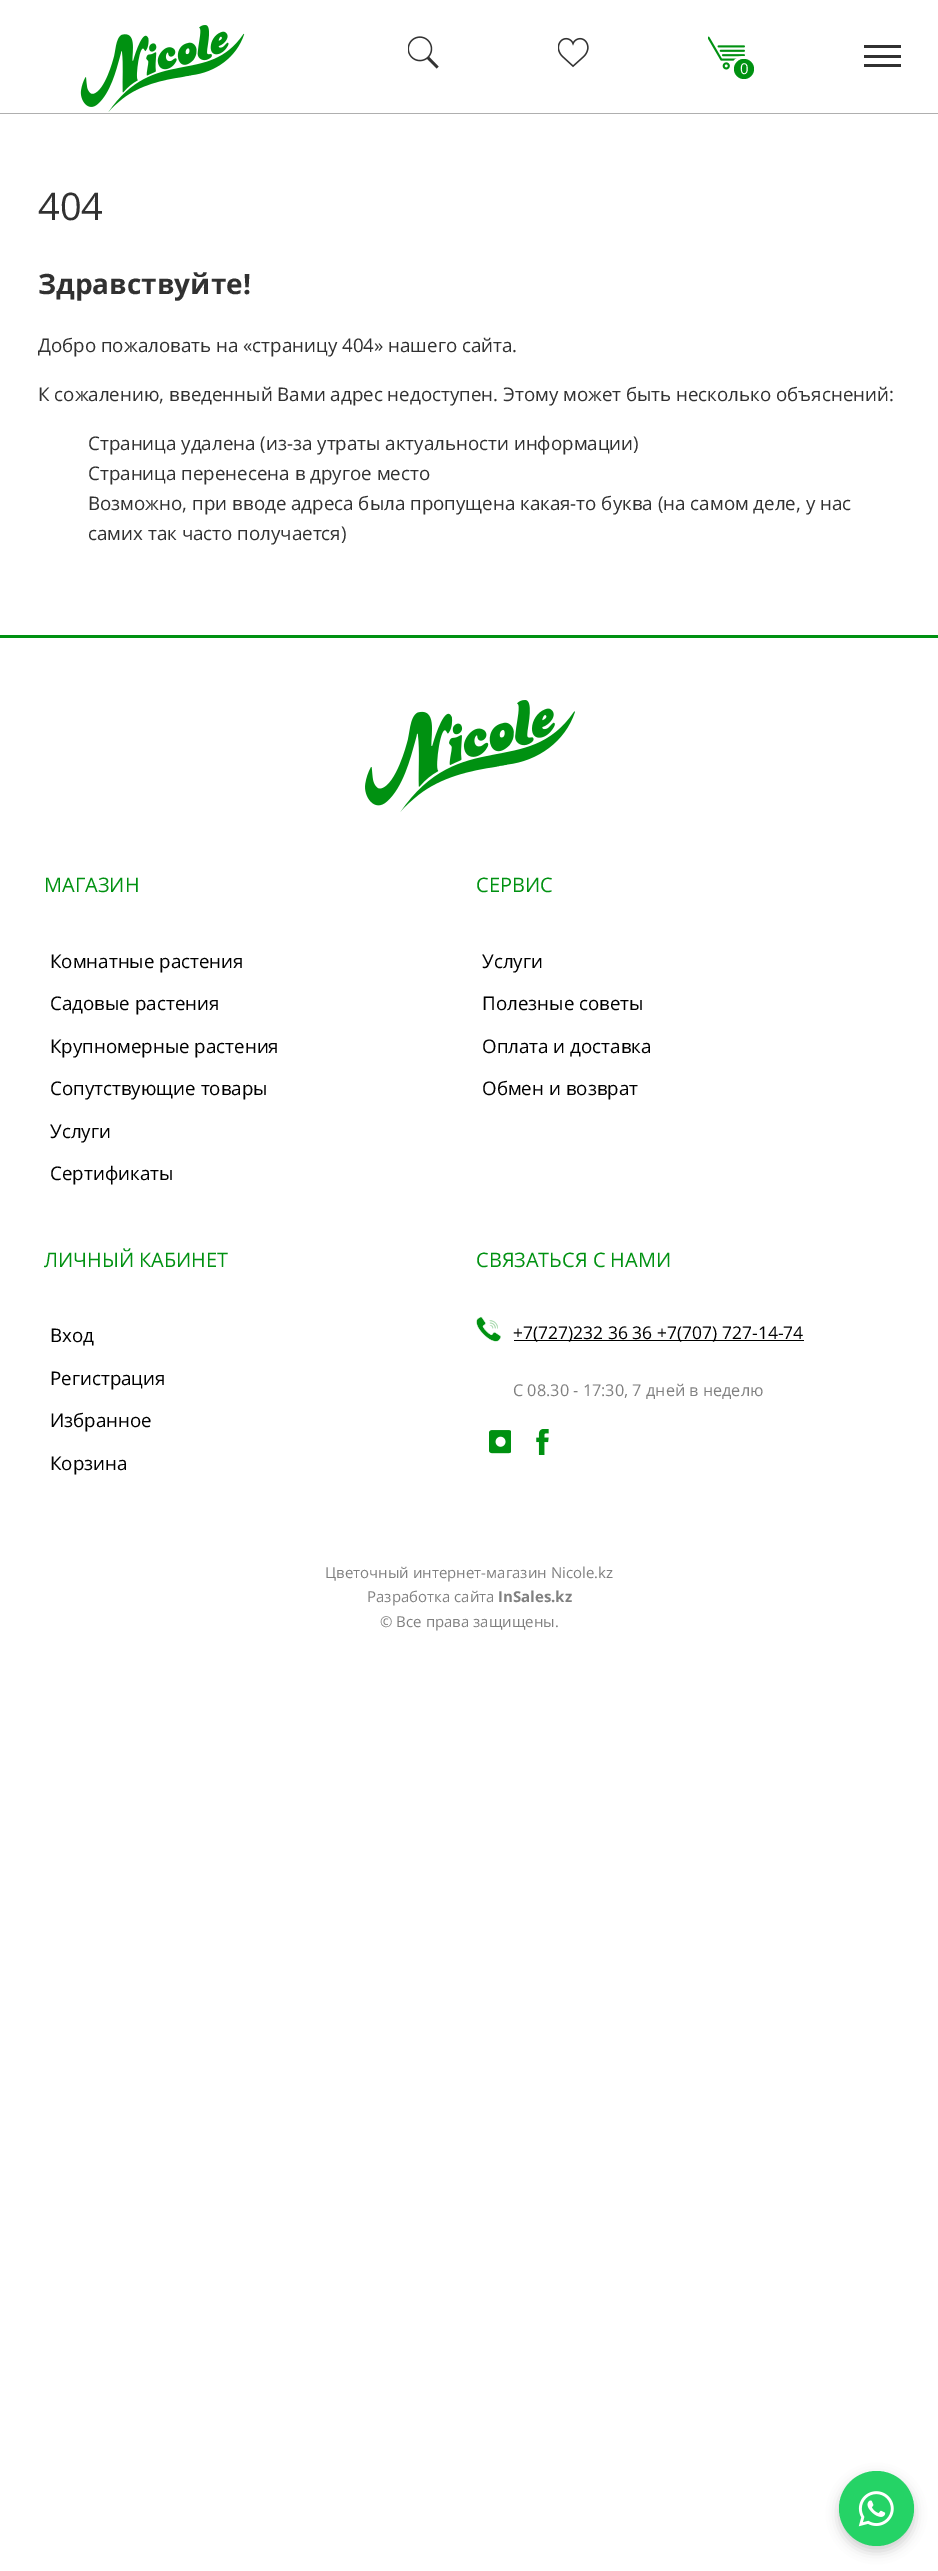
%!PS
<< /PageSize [938 2571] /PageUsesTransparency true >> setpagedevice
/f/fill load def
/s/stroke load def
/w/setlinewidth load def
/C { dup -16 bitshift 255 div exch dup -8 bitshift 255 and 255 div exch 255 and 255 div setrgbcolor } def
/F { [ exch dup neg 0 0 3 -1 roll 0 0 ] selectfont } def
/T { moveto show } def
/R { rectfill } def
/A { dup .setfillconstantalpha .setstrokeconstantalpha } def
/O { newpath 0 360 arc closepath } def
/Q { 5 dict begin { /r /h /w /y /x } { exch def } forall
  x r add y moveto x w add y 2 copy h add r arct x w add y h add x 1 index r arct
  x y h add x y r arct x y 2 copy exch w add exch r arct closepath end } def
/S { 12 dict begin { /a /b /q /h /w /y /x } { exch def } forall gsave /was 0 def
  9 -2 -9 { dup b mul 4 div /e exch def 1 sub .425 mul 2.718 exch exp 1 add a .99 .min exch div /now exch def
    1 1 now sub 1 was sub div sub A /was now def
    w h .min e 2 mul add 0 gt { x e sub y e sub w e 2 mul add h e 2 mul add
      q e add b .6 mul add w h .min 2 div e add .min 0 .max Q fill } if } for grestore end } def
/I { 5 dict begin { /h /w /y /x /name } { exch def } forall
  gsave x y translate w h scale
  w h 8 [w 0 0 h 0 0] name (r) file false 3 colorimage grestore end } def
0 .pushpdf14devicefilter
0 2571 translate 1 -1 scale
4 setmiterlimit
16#FFFFFF C
0 0 938 2571 R
(1.rgb) 80 25 165 87 I
(2.rgb) 408 36 31 33 I
(3.rgb) 558 37 31 31 I
16#313131 C
864 45 37 3 R
864 55 37 3 R
864 64 37 3 R
(4.rgb) 708 36 37 34 I
16#FFFFFF C
3 w
743.5 68.5 11 O s
16#009111 C
744 69 10 O f
/OpenSans-Regular 15 F
16#FFFFFF C
(0) 740 74 T
16#AFAFAF C
0 113 938 1 R
/OpenSans-Regular 38 F
16#313131 C
(404) 38 220 T
/OpenSans-Bold 28 F
(Здравствуйте!) 38 294 T
/OpenSans-Regular 18.75 F
(Добро пожаловать на «страницу 404» нашего сайта.) 38 352 T
(К сожалению, введенный Вами адрес недоступен. Этому может быть несколько объяснений:) 38 401 T
(Страница удалена \(из-за утраты актуальности информации\)) 88 450 T
(Страница перенесена в другое место) 88 480 T
(Возможно, при вводе адреса была пропущена какая-то буква \(на самом деле, у нас) 88 510 T
(самих так часто получается\)) 88 540 T
16#009111 C
0 635 938 3 R
/OpenSans-Regular 20 F
(МАГАЗИН) 44 892 T
/OpenSans-Regular 18.75 F
16#000000 C
(Комнатные растения) 50 968 T
(Садовые растения) 50 1010 T
(Крупномерные растения) 50 1053 T
(Сопутствующие товары) 50 1095 T
(Услуги) 50 1138 T
(Сертификаты) 50 1180 T
/OpenSans-Regular 20 F
16#009111 C
(СЕРВИС) 476 892 T
/OpenSans-Regular 18.75 F
16#000000 C
(Услуги) 482 968 T
(Полезные советы) 482 1010 T
(Оплата и доставка) 482 1053 T
(Обмен и возврат) 482 1095 T
/OpenSans-Regular 20 F
16#009111 C
(ЛИЧНЫЙ КАБИНЕТ) 44 1267 T
/OpenSans-Regular 18.75 F
16#000000 C
(Вход) 50 1342 T
(Регистрация) 50 1385 T
(Избранное) 50 1427 T
(Корзина) 50 1470 T
/OpenSans-Regular 20 F
16#009111 C
(СВЯЗАТЬСЯ С НАМИ) 476 1267 T
(5.rgb) 476 1316 25 26 I
16#000000 C
514 1340 290 1 R
/OpenSans-Regular 17.5 F
(+7\(727\)232 36 36 +7\(707\) 727-14-74) 513 1339 T
/OpenSans-Regular 16.25 F
16#808080 C
(C 08.30 - 17:30, 7 дней в неделю) 513 1396 T
(6.rgb) 489 1430 22 24 I
(7.rgb) 536 1429 13 26 I
(8.rgb) 365 700 210 112 I
/OpenSans-Regular 15 F
(Цветочный интернет-магазин Nicole.kz) 325 1578 T
(Разработка сайта) 367 1602 T
/OpenSans-Bold 15 F
(InSales.kz) 498 1602 T
/OpenSans-Regular 15 F
(© Все права защищены.) 380 1627 T
16#000000 C
839 2476 75 75 37.5 6 .2 S
16#25D366 C
876.5 2508.5 37.5 O f
(9.rgb) 858 2491 36 36 I
.poppdf14devicefilter showpage
